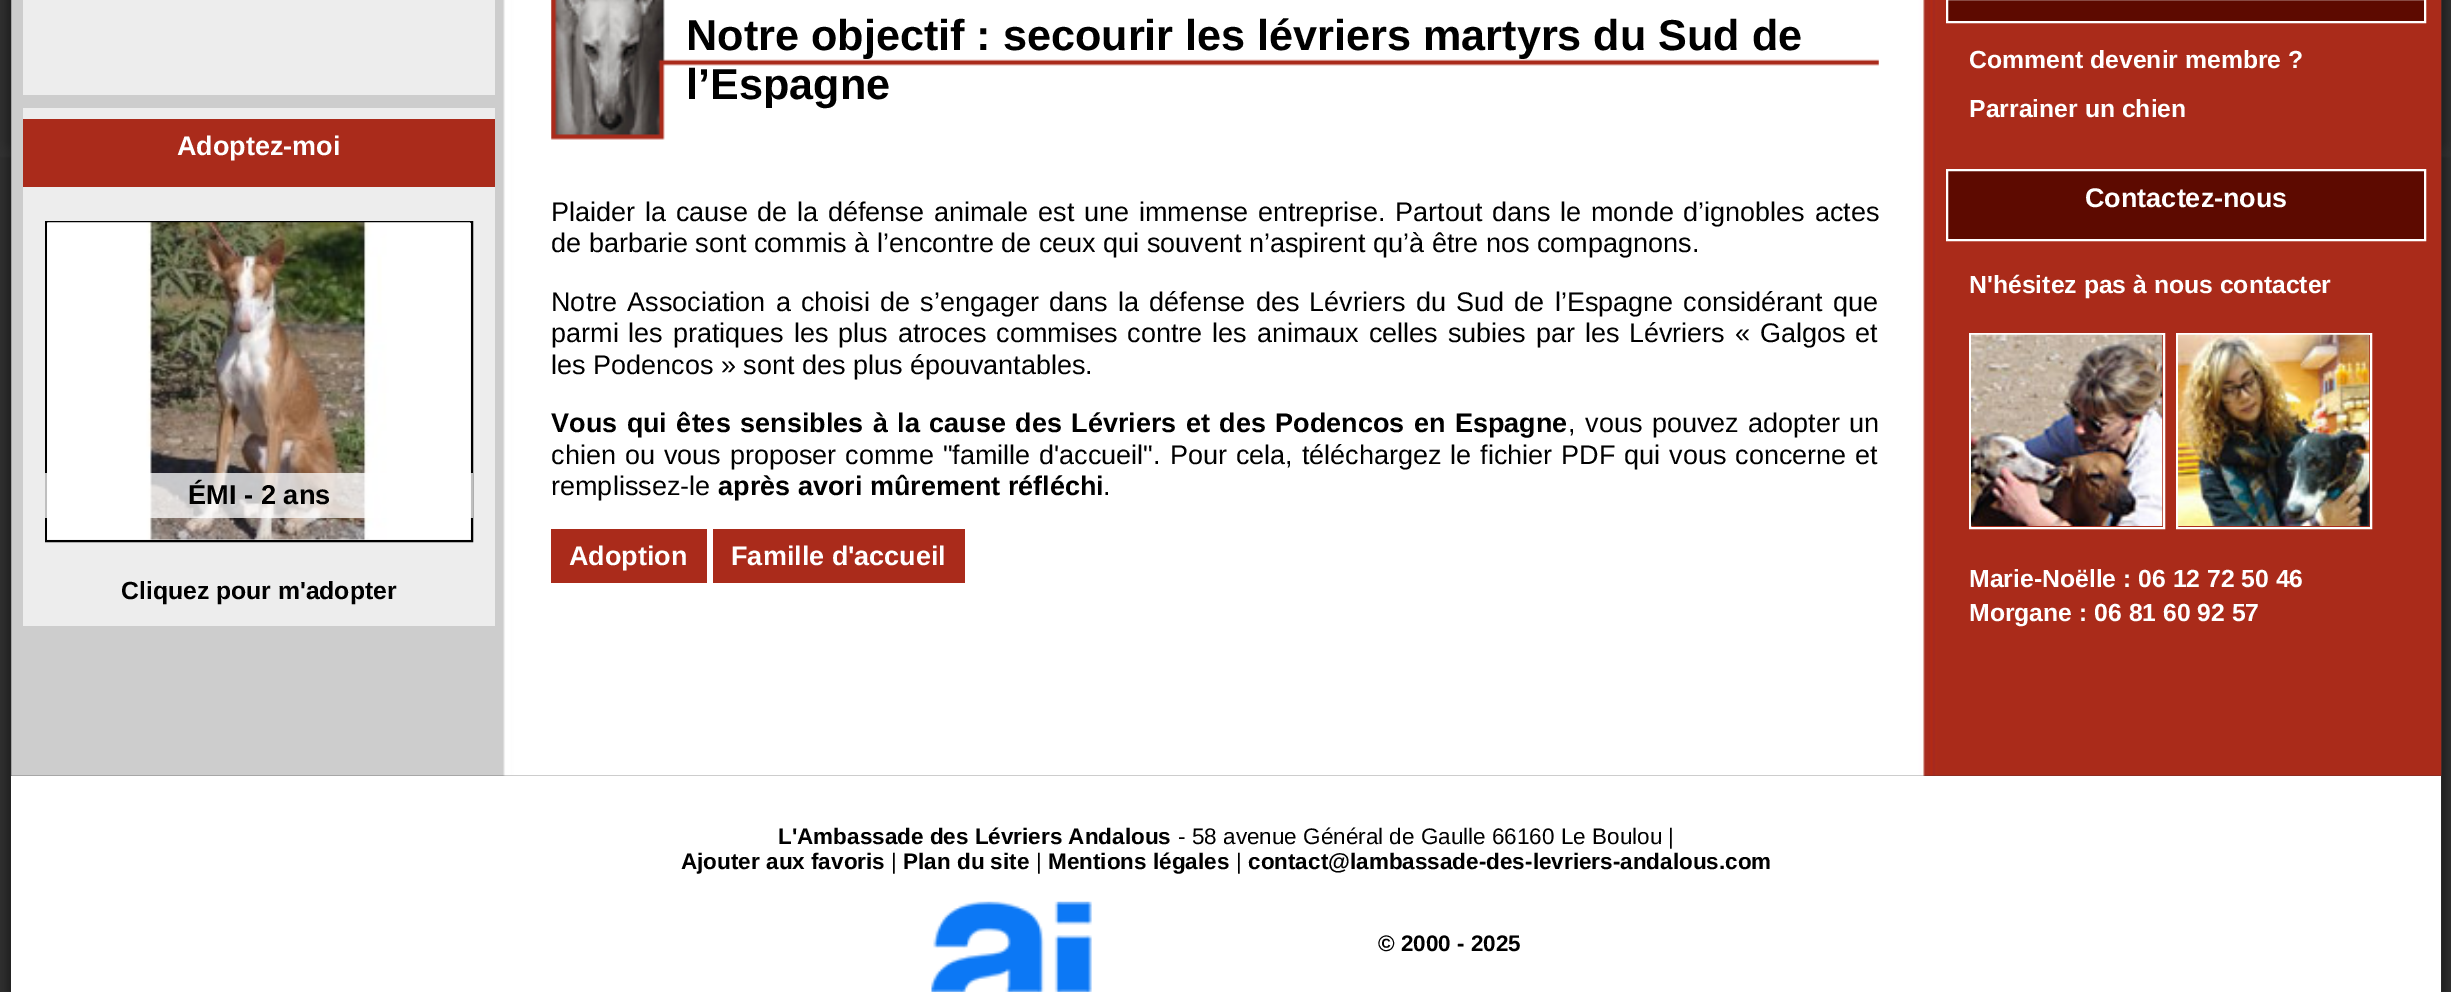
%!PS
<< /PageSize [2451 992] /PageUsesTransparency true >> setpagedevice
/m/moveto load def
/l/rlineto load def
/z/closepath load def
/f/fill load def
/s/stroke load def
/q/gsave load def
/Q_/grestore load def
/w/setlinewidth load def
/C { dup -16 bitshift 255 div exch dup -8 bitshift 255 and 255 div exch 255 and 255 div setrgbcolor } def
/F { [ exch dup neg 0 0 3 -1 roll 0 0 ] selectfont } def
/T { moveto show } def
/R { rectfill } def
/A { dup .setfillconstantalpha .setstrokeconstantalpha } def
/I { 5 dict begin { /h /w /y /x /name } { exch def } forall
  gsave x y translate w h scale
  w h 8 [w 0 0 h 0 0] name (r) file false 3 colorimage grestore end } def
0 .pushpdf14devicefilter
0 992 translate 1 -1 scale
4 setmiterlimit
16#FFFFFF C
0 0 2451 992 R
(1.rgb) 0 0 2451 992 I
(2.rgb) 11 0 2431 776 I
16#EDEDED C
23 0 472 95 R
23 108 472 518 R
16#AA2B1B C
23 119 472 68 R
/LiberationSans-Bold 27 F
16#FFFFFF C
(Adoptez-moi) 177 155 T
16#000000 C
2 w
46 222 426 319 rectstroke
(3.rgb) 47 222 424 318 I
0.75 A
16#FFFFFF C
45 473 428 45 R
/LiberationSans-Bold 27.25 F
1 A
16#000000 C
(ÉMI - 2 ans) 188 504 T
/LiberationSans-Bold 24.75 F
(Cliquez pour m'adopter) 121 599 T
(4.rgb) 551 0 1328 140 I
/LiberationSans-Bold 43.2 F
(Notre objectif : secourir les lévriers martyrs du Sud de) 686 50 T
(l’Espagne) 686 99 T
/LiberationSans-Regular 27 F
551 221 m 2.25 0 32 (Plaider la cause de la défense animale est une immense entreprise. Partout dans le monde d’ignobles actes) widthshow
(de barbarie sont commis à l’encontre de ceux qui souvent n’aspirent qu’à être nos compagnons.) 551 252 T
551 311 m 2.75 0 32 (Notre Association a choisi de s’engager dans la défense des Lévriers du Sud de l’Espagne considérant que) widthshow
551 342 m 2.4 0 32 (parmi les pratiques les plus atroces commises contre les animaux celles subies par les Lévriers « Galgos et) widthshow
(les Podencos » sont des plus épouvantables.) 551 374 T
/LiberationSans-Bold 27 F
551 432 m 2 0 32 (Vous qui êtes sensibles à la cause des Lévriers et des Podencos en Espagne) widthshow
/LiberationSans-Regular 27 F
1568 432 m 2 0 32 (, vous pouvez adopter un) widthshow
551 464 m 1.5 0 32 (chien ou vous proposer comme "famille d'accueil". Pour cela, téléchargez le fichier PDF qui vous concerne et) widthshow
(remplissez-le) 551 495 T
/LiberationSans-Bold 27 F
(après avori mûrement réfléchi) 718 495 T
/LiberationSans-Regular 27 F
(.) 1103 495 T
16#AA2B1B C
551 529 156 54 R
/LiberationSans-Bold 27 F
16#FFFFFF C
(Adoption) 569 565 T
16#AA2B1B C
713 529 252 54 R
16#FFFFFF C
(Famille d'accueil) 731 565 T
16#5D0A00 C
1947 -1 m 478 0 l 0 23 l -478 0 l z q f Q_
16#FFFFFF C
s
/LiberationSans-Bold 24.75 F
(Comment devenir membre ?) 1969 68 T
(Parrainer un chien) 1969 117 T
16#5D0A00 C
1947 170 m 478 0 l 0 70 l -478 0 l z q f Q_
16#FFFFFF C
s
/LiberationSans-Bold 27 F
(Contactez-nous) 2085 207 T
/LiberationSans-Bold 24.75 F
(N'hésitez pas à nous contacter) 1969 293 T
1970 334 194 194 rectstroke
(5.rgb) 1971 334 192 192 I
2177 334 194 194 rectstroke
(6.rgb) 2178 334 192 192 I
(Marie-Noëlle : 06 12 72 50 46) 1969 587 T
(Morgane : 06 81 60 92 57) 1969 621 T
11 776 2430 216 R
/LiberationSans-Bold 22.5 F
16#000000 C
(L'Ambassade des Lévriers Andalous) 778 844 T
/LiberationSans-Regular 22.5 F
(- 58 avenue Général de Gaulle 66160 Le Boulou |) 1178 844 T
/LiberationSans-Bold 22.5 F
(Ajouter aux favoris) 681 869 T
/LiberationSans-Regular 22.5 F
(|) 891 869 T
/LiberationSans-Bold 22.5 F
(Plan du site) 903 869 T
/LiberationSans-Regular 22.5 F
(|) 1036 869 T
/LiberationSans-Bold 22.5 F
(Mentions légales) 1048 869 T
/LiberationSans-Regular 22.5 F
(|) 1236 869 T
/LiberationSans-Bold 22.5 F
(contact@lambassade-des-levriers-andalous.com) 1248 869 T
(7.rgb) 931 901 161 91 I
(© 2000 - 2025) 1378 951 T
.poppdf14devicefilter showpage
